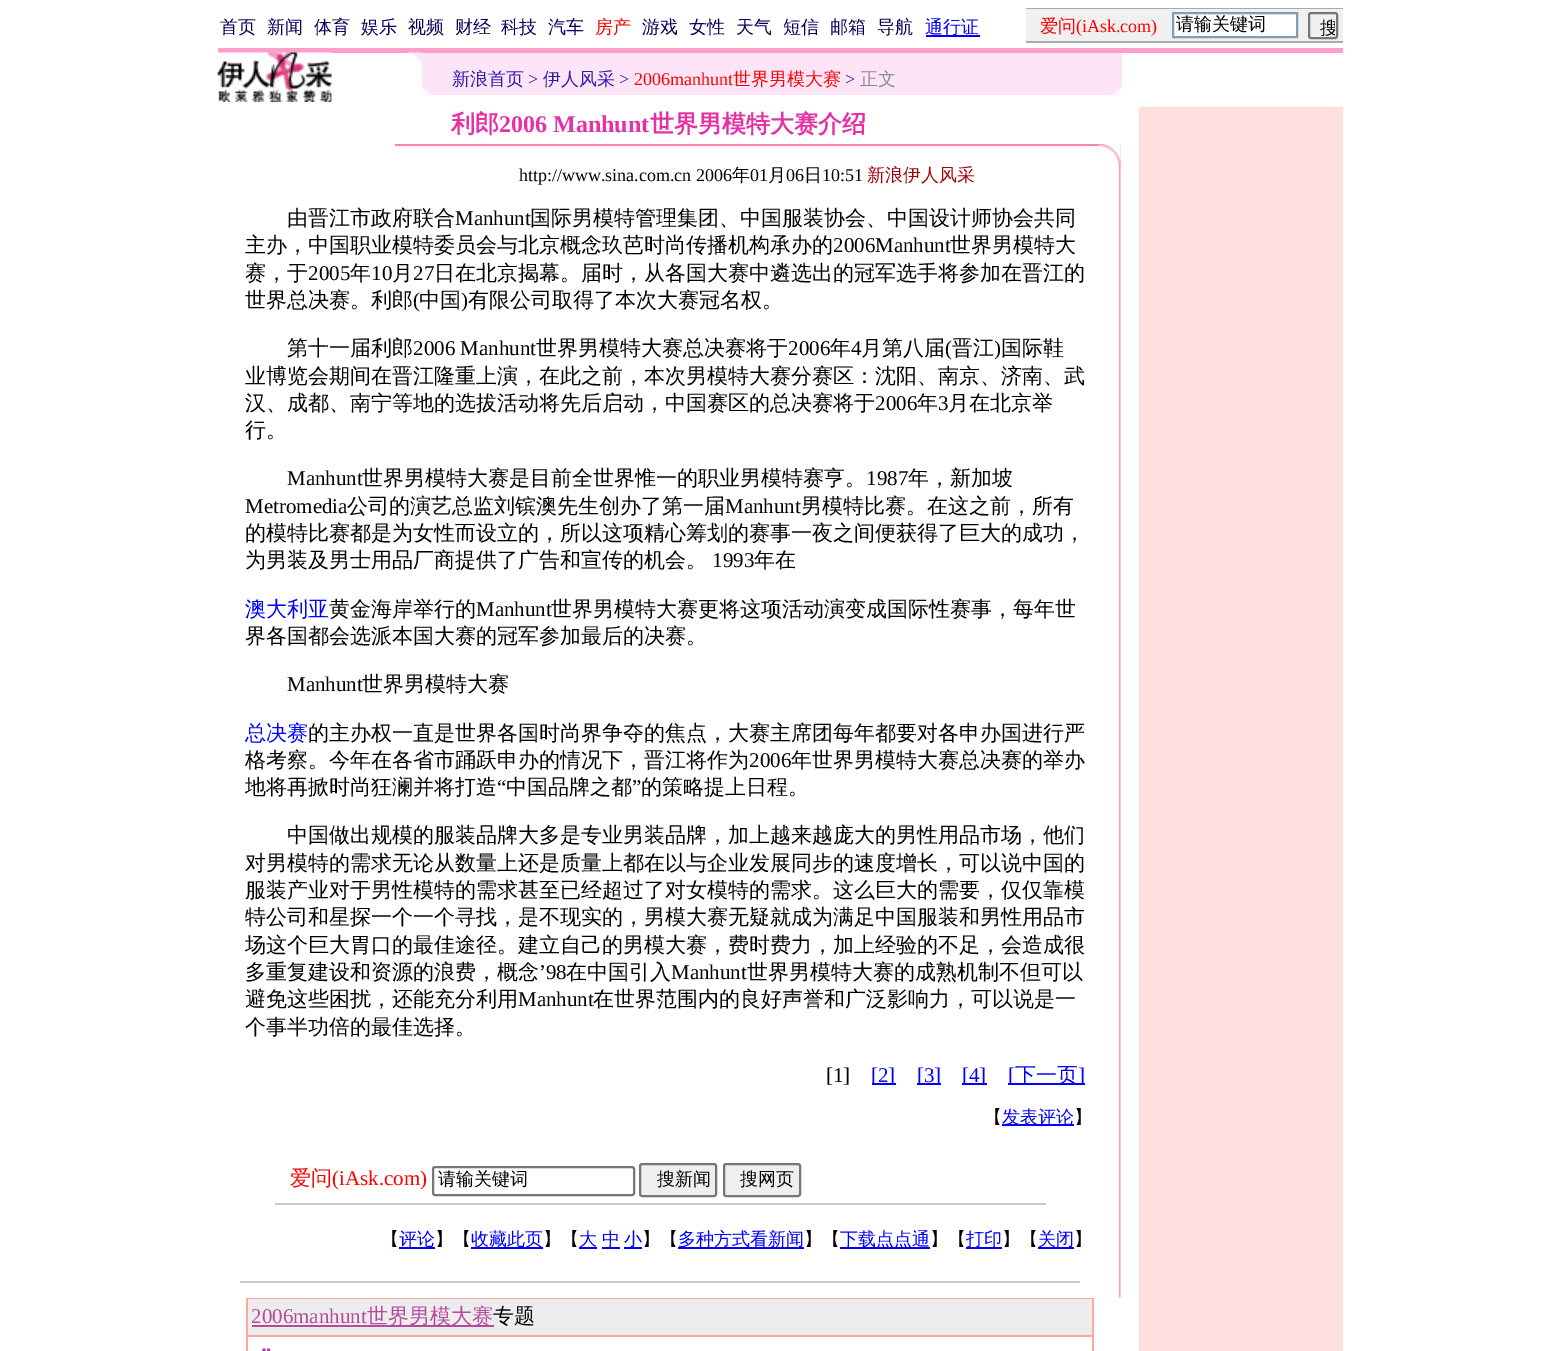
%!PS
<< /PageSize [1559 1351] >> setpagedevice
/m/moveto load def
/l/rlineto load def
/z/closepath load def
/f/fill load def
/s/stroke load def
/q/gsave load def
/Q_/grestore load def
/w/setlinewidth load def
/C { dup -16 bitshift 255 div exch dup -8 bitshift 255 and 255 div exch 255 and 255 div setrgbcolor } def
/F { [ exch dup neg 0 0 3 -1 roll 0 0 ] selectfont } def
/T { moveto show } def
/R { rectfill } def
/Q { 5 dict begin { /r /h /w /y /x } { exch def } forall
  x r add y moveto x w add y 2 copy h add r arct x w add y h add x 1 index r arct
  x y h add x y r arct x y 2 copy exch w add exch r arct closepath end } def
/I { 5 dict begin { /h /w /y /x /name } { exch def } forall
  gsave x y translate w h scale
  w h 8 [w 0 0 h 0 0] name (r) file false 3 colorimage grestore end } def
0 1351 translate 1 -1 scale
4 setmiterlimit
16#FFFFFF C
0 0 1559 1351 R
/WenQuanYiZenHei-Medium 18 F
16#07015B C
(首页) 220 33 T
(新闻) 267 33 T
(体育) 314 33 T
(娱乐) 361 33 T
(视频) 408 33 T
(财经) 455 33 T
(科技) 501 33 T
(汽车) 548 33 T
16#FF0000 C
(房产) 595 33 T
16#07015B C
(游戏) 642 33 T
(女性) 689 33 T
(天气) 736 33 T
(短信) 783 33 T
(邮箱) 830 33 T
(导航) 877 33 T
16#0000FF C
926 35 54 2 R
(通行证) 925 33 T
16#A9A9A9 C
1026 8 317 1 R
16#F0F0F0 C
1026 9 317 32 R
16#FF0000 C
(爱问) 1040 32 T
/LiberationSerif-Regular 18 F
(\(iAsk.com\)) 1076 32 T
16#FFFFFF C
1173 13 m 124 0 l 0 24 l -124 0 l z q f Q_
16#7F9DB9 C
2 w
s
/WenQuanYiZenHei-Medium 18 F
16#000000 C
(请输关键词) 1176 30 T
16#767676 C
1309 13 28 25 2 Q s
q
1311 15 24 21 rectclip
16#000000 C
(搜) 1320 34 T
Q_
16#A9A9A9 C
1026 41 317 2 R
16#FE9FCA C
218 48 1125 5 R
(1.rgb) 217 52 115 50 I
(2.rgb) 409 52 13 13 I
16#FDE4F7 C
422 53 700 42 R
16#311BAD C
(新浪首页) 452 85 T
/LiberationSerif-Regular 18 F
(>) 528 85 T
/WenQuanYiZenHei-Medium 18 F
(伊人风采) 543 85 T
/LiberationSerif-Regular 18 F
(>) 619 85 T
16#FF0000 C
(2006manhunt) 634 85 T
/WenQuanYiZenHei-Medium 18 F
(世界男模大赛) 733 85 T
/LiberationSerif-Regular 18 F
16#311BAD C
(>) 845 85 T
/WenQuanYiZenHei-Medium 18 F
16#898A8E C
(正文) 860 85 T
(3.rgb) 421 85 10 10 I
(4.rgb) 1113 87 9 8 I
/WenQuanYiZenHei-Bold 24 F
16#E530A6 C
(利郎) 451 132 T
/LiberationSerif-Bold 24 F
(2006 Manhunt) 499 132 T
/WenQuanYiZenHei-Bold 24 F
(世界男模特大赛介绍) 650 132 T
16#FE82B7 C
395 144 705 2 R
/LiberationSerif-Regular 18 F
16#000000 C
(http://www.sina.com.cn 2006) 519 181 T
/WenQuanYiZenHei-Medium 18 F
(年) 732 181 T
/LiberationSerif-Regular 18 F
(01) 750 181 T
/WenQuanYiZenHei-Medium 18 F
(月) 768 181 T
/LiberationSerif-Regular 18 F
(06) 786 181 T
/WenQuanYiZenHei-Medium 18 F
(日) 804 181 T
/LiberationSerif-Regular 18 F
(10:51) 822 181 T
/WenQuanYiZenHei-Medium 18 F
16#A20010 C
(新浪伊人风采) 867 181 T
/WenQuanYiZenHei-Medium 21 F
16#000000 C
(由晋江市政府联合) 287 225 T
/LiberationSerif-Regular 21 F
(Manhunt) 455 225 T
/WenQuanYiZenHei-Medium 21 F
(国际男模特管理集团、中国服装协会、中国设计师协会共同) 530 225 T
(主办，中国职业模特委员会与北京概念玖芭时尚传播机构承办的) 245 252 T
/LiberationSerif-Regular 21 F
(2006Manhunt) 833 252 T
/WenQuanYiZenHei-Medium 21 F
(世界男模特大) 950 252 T
(赛，于) 245 280 T
/LiberationSerif-Regular 21 F
(2005) 308 280 T
/WenQuanYiZenHei-Medium 21 F
(年) 350 280 T
/LiberationSerif-Regular 21 F
(10) 371 280 T
/WenQuanYiZenHei-Medium 21 F
(月) 392 280 T
/LiberationSerif-Regular 21 F
(27) 413 280 T
/WenQuanYiZenHei-Medium 21 F
(日在北京揭幕。届时，从各国大赛中遴选出的冠军选手将参加在晋江的) 434 280 T
(世界总决赛。利郎) 245 307 T
/LiberationSerif-Regular 21 F
(\() 413 307 T
/WenQuanYiZenHei-Medium 21 F
(中国) 419 307 T
/LiberationSerif-Regular 21 F
(\)) 461 307 T
/WenQuanYiZenHei-Medium 21 F
(有限公司取得了本次大赛冠名权。) 468 307 T
(第十一届利郎) 287 355 T
/LiberationSerif-Regular 21 F
(2006 Manhunt) 413 355 T
/WenQuanYiZenHei-Medium 21 F
(世界男模特大赛总决赛将于) 536 355 T
/LiberationSerif-Regular 21 F
(2006) 788 355 T
/WenQuanYiZenHei-Medium 21 F
(年) 830 355 T
/LiberationSerif-Regular 21 F
(4) 851 355 T
/WenQuanYiZenHei-Medium 21 F
(月第八届) 861 355 T
/LiberationSerif-Regular 21 F
(\() 945 355 T
/WenQuanYiZenHei-Medium 21 F
(晋江) 952 355 T
/LiberationSerif-Regular 21 F
(\)) 994 355 T
/WenQuanYiZenHei-Medium 21 F
(国际鞋) 1001 355 T
(业博览会期间在晋江隆重上演，在此之前，本次男模特大赛分赛区：沈阳、南京、济南、武) 245 383 T
(汉、成都、南宁等地的选拔活动将先后启动，中国赛区的总决赛将于) 245 410 T
/LiberationSerif-Regular 21 F
(2006) 875 410 T
/WenQuanYiZenHei-Medium 21 F
(年) 917 410 T
/LiberationSerif-Regular 21 F
(3) 938 410 T
/WenQuanYiZenHei-Medium 21 F
(月在北京举) 948 410 T
(行。) 245 437 T
/LiberationSerif-Regular 21 F
(Manhunt) 287 485 T
/WenQuanYiZenHei-Medium 21 F
(世界男模特大赛是目前全世界惟一的职业男模特赛亨。) 362 485 T
/LiberationSerif-Regular 21 F
(1987) 866 485 T
/WenQuanYiZenHei-Medium 21 F
(年，新加坡) 908 485 T
/LiberationSerif-Regular 21 F
(Metromedia) 245 513 T
/WenQuanYiZenHei-Medium 21 F
(公司的演艺总监刘镔澳先生创办了第一届) 347 513 T
/LiberationSerif-Regular 21 F
(Manhunt) 725 513 T
/WenQuanYiZenHei-Medium 21 F
(男模特比赛。在这之前，所有) 801 513 T
(的模特比赛都是为女性而设立的，所以这项精心筹划的赛事一夜之间便获得了巨大的成功，) 245 540 T
(为男装及男士用品厂商提供了广告和宣传的机会。) 245 567 T
/LiberationSerif-Regular 21 F
(1993) 712 567 T
/WenQuanYiZenHei-Medium 21 F
(年在) 754 567 T
16#0000FF C
(澳大利亚) 245 616 T
16#000000 C
(黄金海岸举行的) 329 616 T
/LiberationSerif-Regular 21 F
(Manhunt) 476 616 T
/WenQuanYiZenHei-Medium 21 F
(世界男模特大赛更将这项活动演变成国际性赛事，每年世) 551 616 T
(界各国都会选派本国大赛的冠军参加最后的决赛。) 245 643 T
/LiberationSerif-Regular 21 F
(Manhunt) 287 691 T
/WenQuanYiZenHei-Medium 21 F
(世界男模特大赛) 362 691 T
16#0000FF C
(总决赛) 245 740 T
16#000000 C
(的主办权一直是世界各国时尚界争夺的焦点，大赛主席团每年都要对各申办国进行严) 308 740 T
(格考察。今年在各省市踊跃申办的情况下，晋江将作为) 245 767 T
/LiberationSerif-Regular 21 F
(2006) 749 767 T
/WenQuanYiZenHei-Medium 21 F
(年世界男模特大赛总决赛的举办) 791 767 T
(地将再掀时尚狂澜并将打造) 245 794 T
/LiberationSerif-Regular 21 F
(“) 497 794 T
/WenQuanYiZenHei-Medium 21 F
(中国品牌之都) 506 794 T
/LiberationSerif-Regular 21 F
(”) 632 794 T
/WenQuanYiZenHei-Medium 21 F
(的策略提上日程。) 641 794 T
(中国做出规模的服装品牌大多是专业男装品牌，加上越来越庞大的男性用品市场，他们) 287 842 T
(对男模特的需求无论从数量上还是质量上都在以与企业发展同步的速度增长，可以说中国的) 245 870 T
(服装产业对于男性模特的需求甚至已经超过了对女模特的需求。这么巨大的需要，仅仅靠模) 245 897 T
(特公司和星探一个一个寻找，是不现实的，男模大赛无疑就成为满足中国服装和男性用品市) 245 924 T
(场这个巨大胃口的最佳途径。建立自己的男模大赛，费时费力，加上经验的不足，会造成很) 245 952 T
(多重复建设和资源的浪费，概念) 245 979 T
/LiberationSerif-Regular 21 F
(’98) 539 979 T
/WenQuanYiZenHei-Medium 21 F
(在中国引入) 566 979 T
/LiberationSerif-Regular 21 F
(Manhunt) 671 979 T
/WenQuanYiZenHei-Medium 21 F
(世界男模特大赛的成熟机制不但可以) 747 979 T
(避免这些困扰，还能充分利用) 245 1006 T
/LiberationSerif-Regular 21 F
(Manhunt) 518 1006 T
/WenQuanYiZenHei-Medium 21 F
(在世界范围内的良好声誉和广泛影响力，可以说是一) 593 1006 T
(个事半功倍的最佳选择。) 245 1034 T
/LiberationSerif-Regular 21 F
([1]) 826 1082 T
16#0000FF C
872 1083 24 2 R
([2]) 871 1082 T
917 1083 24 2 R
([3]) 917 1082 T
962 1083 25 2 R
([4]) 962 1082 T
1008 1083 77 2 R
([) 1008 1082 T
/WenQuanYiZenHei-Medium 21 F
(下一页) 1015 1082 T
/LiberationSerif-Regular 21 F
(]) 1078 1082 T
/WenQuanYiZenHei-Medium 18 F
16#000000 C
(【) 984 1123 T
16#0000FF C
1002 1124 72 2 R
(发表评论) 1002 1123 T
16#000000 C
(】) 1074 1123 T
16#C6C9D1 C
275 1203 771 2 R
/WenQuanYiZenHei-Medium 21 F
16#FF0000 C
(爱问) 290 1185 T
/LiberationSerif-Regular 21 F
(\(iAsk.com\)) 332 1185 T
16#767676 C
433 1167 201 28 2 Q s
/WenQuanYiZenHei-Medium 18 F
16#000000 C
(请输关键词) 438 1185 T
16#EFEFEF C
640 1164 76 32 2 Q q f Q_
16#767676 C
s
16#000000 C
(搜新闻) 657 1185 T
16#EFEFEF C
724 1164 76 32 2 Q q f Q_
16#767676 C
s
16#000000 C
(搜网页) 740 1185 T
(【) 381 1245 T
16#0000FF C
399 1247 36 2 R
(评论) 399 1245 T
16#000000 C
(】【) 435 1245 T
16#0000FF C
471 1247 72 2 R
(收藏此页) 471 1245 T
16#000000 C
(】【) 543 1245 T
16#0000FF C
579 1247 18 2 R
(大) 579 1245 T
(中) 602 1245 T
602 1247 18 2 R
624 1247 18 2 R
(小) 624 1245 T
16#000000 C
(】【) 642 1245 T
16#0000FF C
678 1247 126 2 R
(多种方式看新闻) 678 1245 T
16#000000 C
(】【) 804 1245 T
16#0000FF C
840 1247 90 2 R
(下载点点通) 840 1245 T
16#000000 C
(】【) 930 1245 T
16#0000FF C
966 1247 36 2 R
(打印) 966 1245 T
16#000000 C
(】【) 1002 1245 T
16#0000FF C
1038 1247 36 2 R
(关闭) 1038 1245 T
16#000000 C
(】) 1074 1245 T
16#C6C9D1 C
240 1281 840 2 R
(5.rgb) 1099 144 22 1154 I
(6.rgb) 1099 144 22 21 I
16#FEA6A0 C
246 1298 848 53 R
16#EDEDEF C
248 1299 844 36 R
/LiberationSerif-Regular 21 F
16#B7499C C
(2006manhunt) 251 1323 T
252 1325 242 2 R
/WenQuanYiZenHei-Medium 21 F
(世界男模大赛) 367 1323 T
16#000000 C
(专题) 493 1323 T
16#FFFFFF C
248 1337 844 14 R
(7.rgb) 262 1348 9 3 I
16#FFE0DE C
1139 107 204 1244 R
showpage
